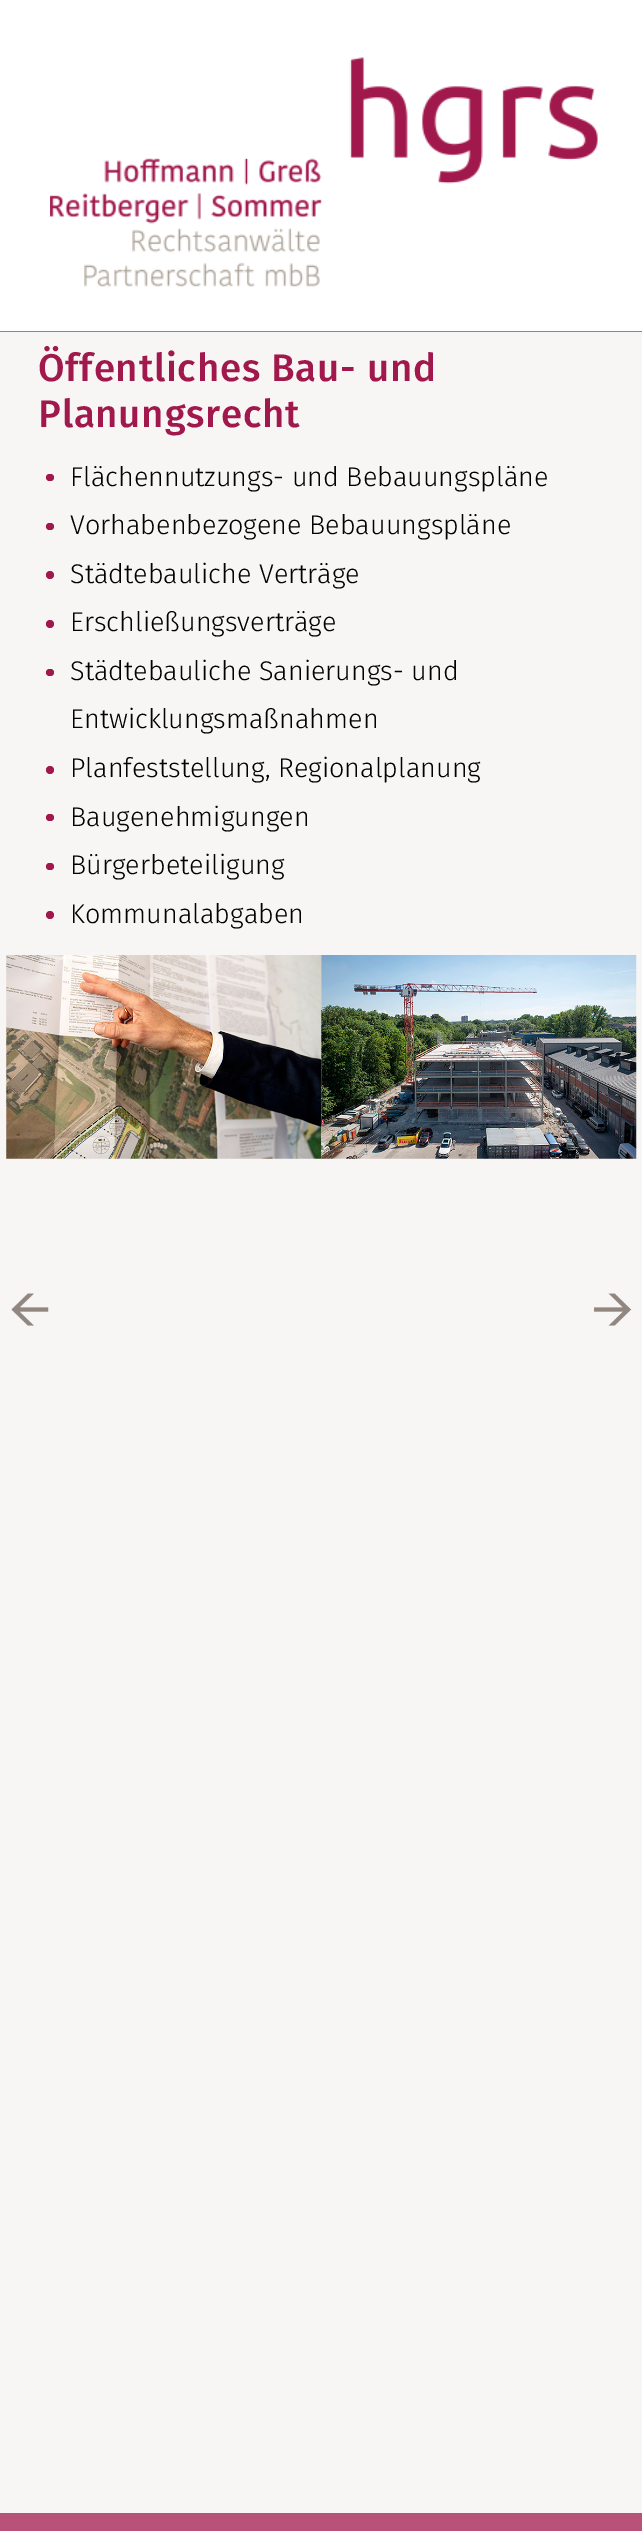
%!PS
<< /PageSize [642 2531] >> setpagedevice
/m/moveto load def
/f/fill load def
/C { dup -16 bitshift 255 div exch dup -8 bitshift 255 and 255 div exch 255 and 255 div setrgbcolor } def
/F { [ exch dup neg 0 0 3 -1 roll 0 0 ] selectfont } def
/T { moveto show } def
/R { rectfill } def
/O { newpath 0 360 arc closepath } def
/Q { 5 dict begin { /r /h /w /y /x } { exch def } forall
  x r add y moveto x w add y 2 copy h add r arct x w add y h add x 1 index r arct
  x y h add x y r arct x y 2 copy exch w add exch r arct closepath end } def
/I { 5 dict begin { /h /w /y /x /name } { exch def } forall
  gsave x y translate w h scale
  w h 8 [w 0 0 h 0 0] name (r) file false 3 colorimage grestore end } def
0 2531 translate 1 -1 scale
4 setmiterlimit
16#F7F6F4 C
0 0 642 2531 R
16#FFFFFF C
0 0 642 331 R
(1.rgb) 50 57 548 230 I
16#918780 C
0 331 642 1 R
/FiraSans-Medium 38.5 F
16#A1184C C
38 381 m .75 0 (Öffentliches Bau- und) ashow
38 427 m .75 0 (Planungsrecht) ashow
46 474 8 7 3.5 Q f
/FiraSans-Light 27 F
16#000000 C
(Flächennutzungs- und Bebauungspläne) 70 486 T
16#A1184C C
46 523 8 7 3.5 Q f
16#000000 C
(Vorhabenbezogene Bebauungspläne) 70 534 T
16#A1184C C
50 575 4 O f
16#000000 C
(Städtebauliche Verträge) 70 583 T
16#A1184C C
50 624 4 O f
16#000000 C
(Erschließungsverträge) 70 631 T
16#A1184C C
46 669 8 7 3.5 Q f
16#000000 C
(Städtebauliche Sanierungs- und) 70 680 T
(Entwicklungsmaßnahmen) 70 728 T
16#A1184C C
50 770 4 O f
16#000000 C
(Planfeststellung, Regionalplanung) 70 777 T
16#A1184C C
46 814 8 7 3.5 Q f
16#000000 C
(Baugenehmigungen) 70 826 T
16#A1184C C
46 863 8 7 3.5 Q f
16#000000 C
(Bürgerbeteiligung) 70 874 T
16#A1184C C
50 915 4 O f
16#000000 C
(Kommunalabgaben) 70 923 T
(2.rgb) 6 955 316 204 I
(3.rgb) 321 955 316 204 I
(4.rgb) 11 1293 38 33 I
(5.rgb) 594 1293 38 33 I
16#B95279 C
0 2513 642 18 R
showpage
